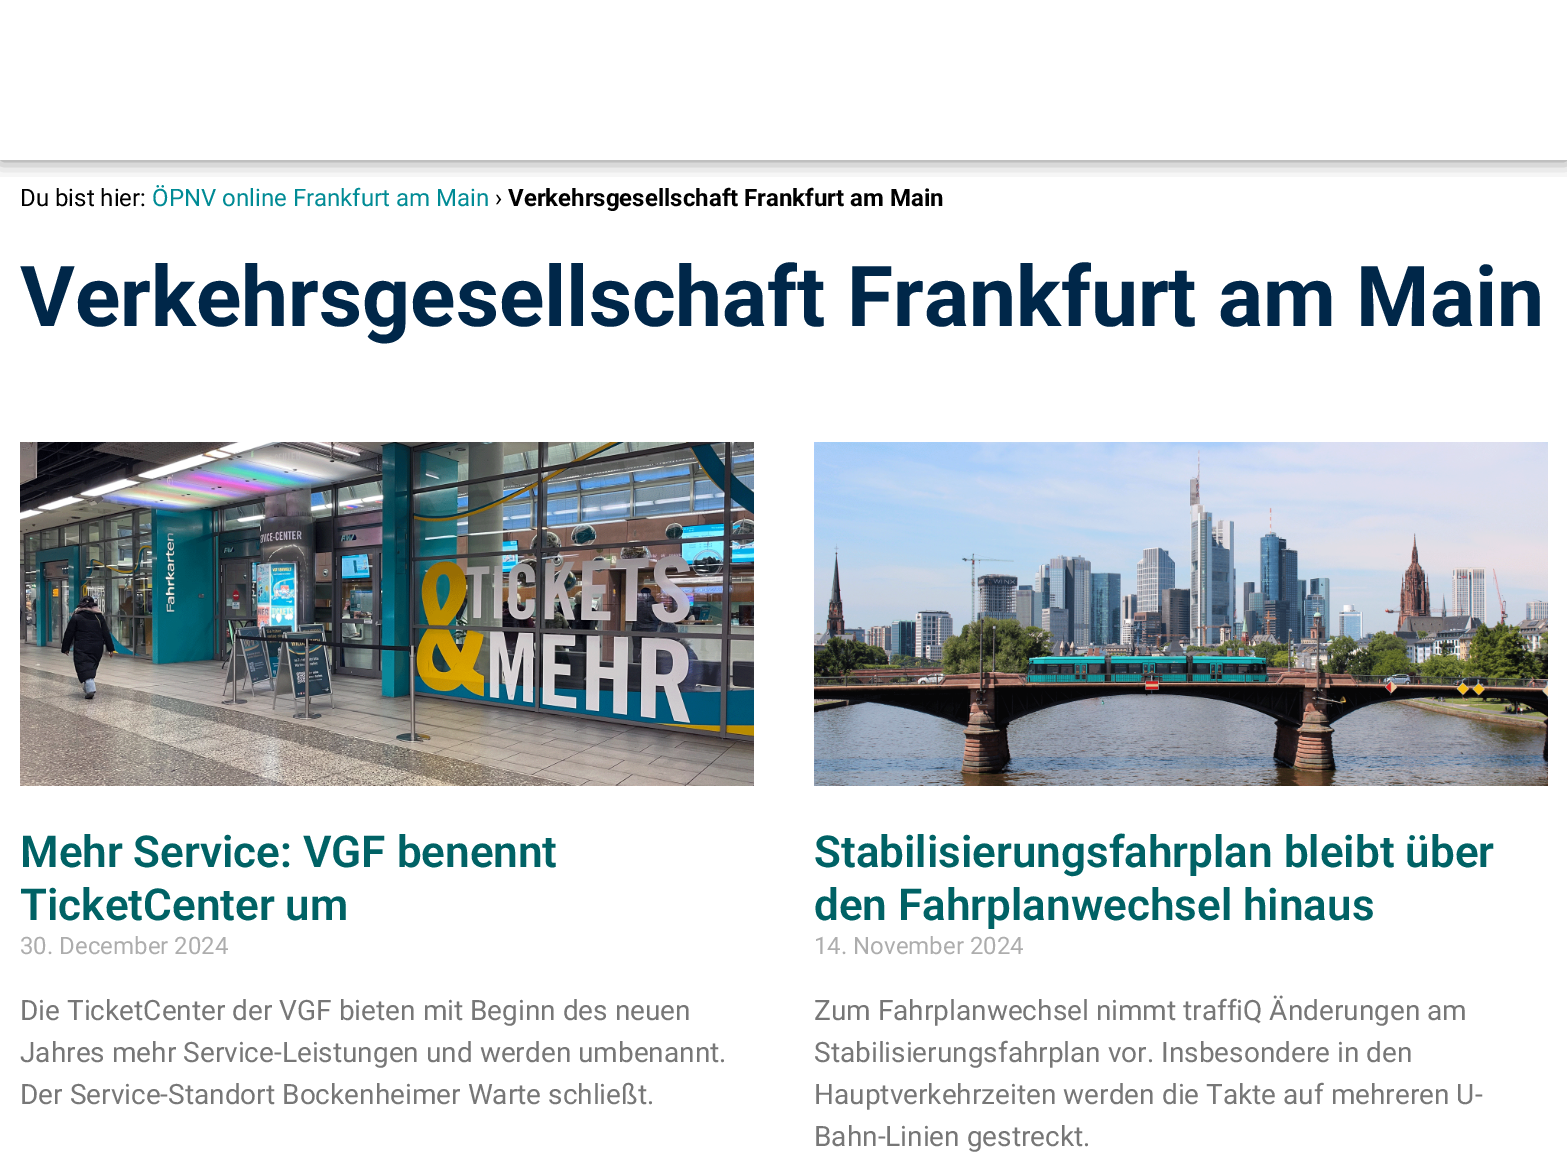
%!PS
<< /PageSize [1567 1153] /PageUsesTransparency true >> setpagedevice
/q/gsave load def
/Q_/grestore load def
/C { dup -16 bitshift 255 div exch dup -8 bitshift 255 and 255 div exch 255 and 255 div setrgbcolor } def
/F { [ exch dup neg 0 0 3 -1 roll 0 0 ] selectfont } def
/T { moveto show } def
/R { rectfill } def
/A { dup .setfillconstantalpha .setstrokeconstantalpha } def
/Q { 5 dict begin { /r /h /w /y /x } { exch def } forall
  x r add y moveto x w add y 2 copy h add r arct x w add y h add x 1 index r arct
  x y h add x y r arct x y 2 copy exch w add exch r arct closepath end } def
/S { 12 dict begin { /a /b /q /h /w /y /x } { exch def } forall gsave /was 0 def
  9 -2 -9 { dup b mul 4 div /e exch def 1 sub .425 mul 2.718 exch exp 1 add a .99 .min exch div /now exch def
    1 1 now sub 1 was sub div sub A /was now def
    w h .min e 2 mul add 0 gt { x e sub y e sub w e 2 mul add h e 2 mul add
      q e add b .6 mul add w h .min 2 div e add .min 0 .max Q fill } if } for grestore end } def
/I { 5 dict begin { /h /w /y /x /name } { exch def } forall
  gsave x y translate w h scale
  w h 8 [w 0 0 h 0 0] name (r) file false 3 colorimage grestore end } def
0 .pushpdf14devicefilter
0 1153 translate 1 -1 scale
4 setmiterlimit
16#FFFFFF C
0 0 1567 1153 R
q
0 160 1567 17 rectclip
16#000000 C
0 0 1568 160 0 10 .5 S
Q_
/Roboto-Regular 24 F
16#000000 C
(Du bist hier:) 20 206 T
16#008B95 C
(ÖPNV online Frankfurt am Main) 152 206 T
16#000000 C
(›) 495 206 T
/Roboto-Bold 24 F
(Verkehrsgesellschaft Frankfurt am Main) 508 206 T
/Roboto-Bold 84 F
16#002749 C
(Verkehrsgesellschaft Frankfurt am Main) 20 326 T
(1.rgb) 20 442 734 344 I
/Roboto-SemiBold 44 F
16#006265 C
(Mehr Service: VGF benennt) 20 867 T
(TicketCenter um) 20 920 T
/Roboto-Regular 24 F
16#ADADAD C
(30. December 2024) 20 954 T
/Roboto-Regular 28 F
16#777777 C
(Die TicketCenter der VGF bieten mit Beginn des neuen) 20 1020 T
(Jahres mehr Service-Leistungen und werden umbenannt.) 20 1062 T
(Der Service-Standort Bockenheimer Warte schließt.) 20 1104 T
(2.rgb) 814 442 734 344 I
/Roboto-SemiBold 44 F
16#006265 C
(Stabilisierungsfahrplan bleibt über) 814 867 T
(den Fahrplanwechsel hinaus) 814 920 T
/Roboto-Regular 24 F
16#ADADAD C
(14. November 2024) 814 954 T
/Roboto-Regular 28 F
16#777777 C
(Zum Fahrplanwechsel nimmt traffiQ Änderungen am) 814 1020 T
(Stabilisierungsfahrplan vor. Insbesondere in den) 814 1062 T
(Hauptverkehrzeiten werden die Takte auf mehreren U-) 814 1104 T
(Bahn-Linien gestreckt.) 814 1146 T
.poppdf14devicefilter showpage
